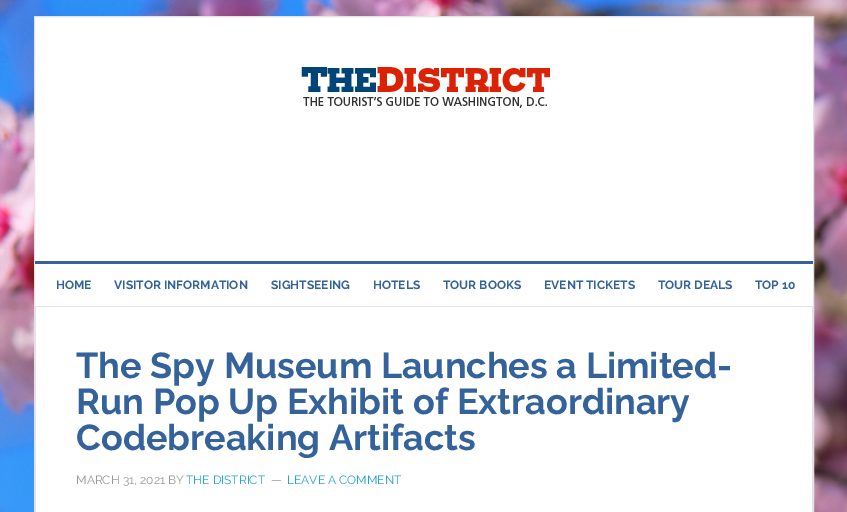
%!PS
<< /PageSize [847 512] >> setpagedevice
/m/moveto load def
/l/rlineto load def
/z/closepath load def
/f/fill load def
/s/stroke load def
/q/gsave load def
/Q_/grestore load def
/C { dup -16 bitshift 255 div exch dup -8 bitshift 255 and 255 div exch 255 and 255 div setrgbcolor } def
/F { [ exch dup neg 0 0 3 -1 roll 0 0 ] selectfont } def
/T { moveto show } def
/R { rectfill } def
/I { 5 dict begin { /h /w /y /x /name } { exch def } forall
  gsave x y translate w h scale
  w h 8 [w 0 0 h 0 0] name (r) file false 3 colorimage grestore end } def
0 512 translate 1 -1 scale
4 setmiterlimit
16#FFFFFF C
0 0 847 512 R
(1.rgb) 0 0 847 512 I
34.5 16.5 m 779 0 l 0 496 l -779 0 l z q f Q_
16#E3E3E3 C
s
16#34639B C
35 261 778 3 R
(2.rgb) 301 67 249 41 I
16#E3E3E3 C
35 306 778 1 R
/Raleway-Bold 12 F
16#34639B C
(HOME) 56 289 T
(VISITOR INFORMATION) 114 289 T
(SIGHTSEEING) 271 289 T
(HOTELS) 373 289 T
(TOUR BOOKS) 443 289 T
(EVENT TICKETS) 544 289 T
(TOUR DEALS) 658 289 T
(TOP 10) 755 289 T
16#E3E3E3 C
812 307 1 205 R
35 307 1 205 R
/Raleway-Bold 36 F
16#34639B C
(The Spy Museum Launches a Limited-) 76 378 T
(Run Pop Up Exhibit of Extraordinary) 76 414 T
(Codebreaking Artifacts) 76 450 T
/Raleway-Regular 12 F
16#999999 C
(MARCH 31, 2021 BY) 76 484 T
16#27A3D1 C
(THE DISTRICT) 186 484 T
16#999999 C
(—) 271 484 T
16#27A3D1 C
(LEAVE A COMMENT) 287 484 T
showpage
